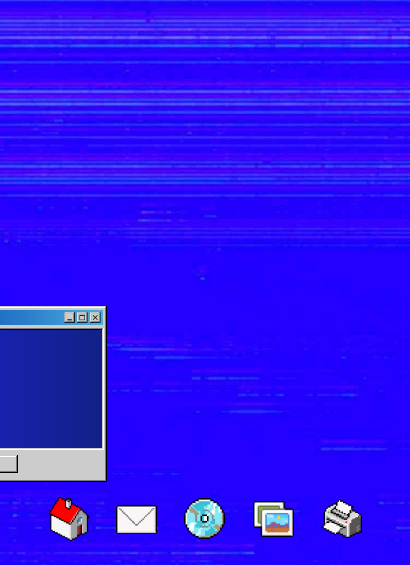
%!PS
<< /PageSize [410 565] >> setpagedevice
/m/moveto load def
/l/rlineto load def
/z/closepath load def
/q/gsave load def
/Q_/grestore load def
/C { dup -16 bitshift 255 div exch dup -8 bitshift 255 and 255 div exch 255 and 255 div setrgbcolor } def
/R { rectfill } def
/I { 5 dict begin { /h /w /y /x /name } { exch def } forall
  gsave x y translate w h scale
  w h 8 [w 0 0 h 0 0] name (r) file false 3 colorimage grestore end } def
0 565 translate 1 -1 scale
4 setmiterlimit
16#FFFFFF C
0 0 410 565 R
(1.rgb) 0 0 410 565 I
16#CCCCCC C
0 306 106 1 R
16#FFFFFF C
0 307 105 1 R
16#CCCCCC C
0 308 105 172 R
q 0 310 m 103 0 l 0 15 l -103 0 l z clip newpath
<< /ShadingType 2 /ColorSpace /DeviceRGB /Coords [-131 318 103 318] /Extend [true true] /Function << /FunctionType 3 /Domain [0 1] /Functions [<< /FunctionType 2 /Domain [0 1] /C0 [0 .259 .702] /C1 [.02 .286 .714] /N 1 >> << /FunctionType 2 /Domain [0 1] /C0 [.02 .286 .714] /C1 [.075 .365 .745] /N 1 >> << /FunctionType 2 /Domain [0 1] /C0 [.075 .365 .745] /C1 [.165 .49 .796] /N 1 >> << /FunctionType 2 /Domain [0 1] /C0 [.165 .49 .796] /C1 [.29 .663 .871] /N 1 >> << /FunctionType 2 /Domain [0 1] /C0 [.29 .663 .871] /C1 [.306 .686 .878] /N 1 >>] /Bounds [.16 .39 .66 .97] /Encode [0 1 0 1 0 1 0 1 0 1] >> >> shfill Q_
(2.rgb) 64 312 11 11 I
(3.rgb) 77 312 11 11 I
(4.rgb) 90 312 11 11 I
16#7B7B7B C
0 328 103 1 R
16#000000 C
0 329 102 1 R
q 0 330 m 102 0 l 0 118 l -102 0 l z clip newpath
<< /ShadingType 2 /ColorSpace /DeviceRGB /Coords [-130 389 102 389] /Extend [true true] /Function << /FunctionType 2 /Domain [0 1] /C0 [.129 .129 .867] /C1 [.067 .133 .529] /N 1 >> >> shfill Q_
16#FFFFFF C
103 328 1 122 R
0 449 104 1 R
0 456 16 1 R
16#7B7B7B C
16 456 1 16 R
0 471 17 1 R
16#000000 C
17 455 1 18 R
0 472 18 1 R
16#7B7B7B C
105 307 1 174 R
0 480 106 1 R
16#000000 C
106 306 1 176 R
0 481 107 1 R
(5.rgb) 48 497 41 44 I
(6.rgb) 116 504 41 30 I
(7.rgb) 184 498 41 41 I
(8.rgb) 253 501 41 36 I
(9.rgb) 321 499 41 39 I
showpage
